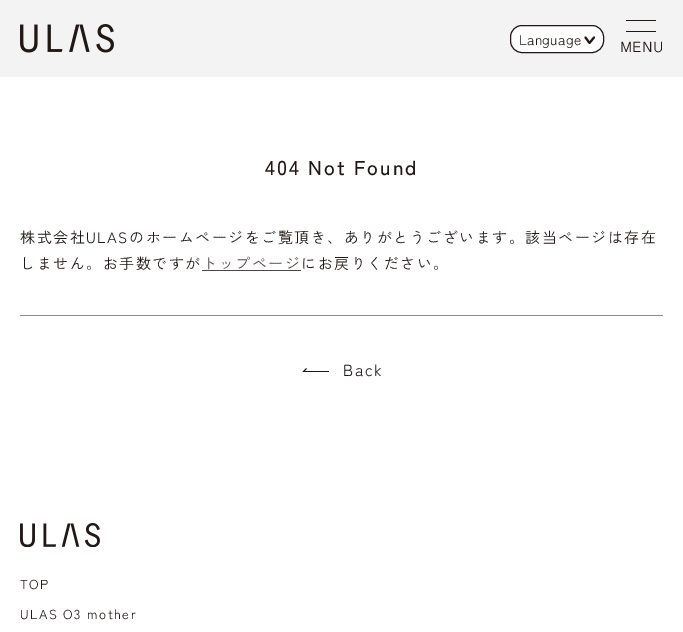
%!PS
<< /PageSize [683 632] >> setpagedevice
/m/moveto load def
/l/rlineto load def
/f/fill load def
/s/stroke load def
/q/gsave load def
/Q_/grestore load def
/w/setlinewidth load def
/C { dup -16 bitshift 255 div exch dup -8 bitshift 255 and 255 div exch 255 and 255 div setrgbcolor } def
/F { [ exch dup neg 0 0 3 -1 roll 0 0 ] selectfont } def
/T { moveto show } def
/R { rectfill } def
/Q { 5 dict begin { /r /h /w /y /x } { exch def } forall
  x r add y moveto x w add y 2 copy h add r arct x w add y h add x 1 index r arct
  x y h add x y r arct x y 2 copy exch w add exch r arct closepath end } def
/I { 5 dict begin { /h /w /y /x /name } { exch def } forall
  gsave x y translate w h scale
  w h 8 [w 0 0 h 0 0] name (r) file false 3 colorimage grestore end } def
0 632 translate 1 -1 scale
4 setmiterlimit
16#FFFFFF C
0 0 683 632 R
16#F3F3F3 C
0 0 683 77 R
(1.rgb) 20 24 94 29 I
16#FFFFFF C
510.5 25.5 93 27 11.5 Q q f Q_
16#211815 C
s
/ZenKakuGothicNew-Regular 14 F
519 45 m .25 0 (Language) ashow
2 w
1 setlinecap
1 setlinejoin
594 37.5 m -4.5 5.5 l -4 -5.5 l s
626 20 30 1 R
626 31 30 1 R
/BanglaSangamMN-Regular 15 F
(MENU) 620 52 T
/ZenKakuGothicNew-Medium 20 F
265 175 m 2 0 (404 Not Found) ashow
/ZenKakuGothicNew-Regular 15 F
20 243 m 1.5 0 (株式会社ULASのホームページをご覧頂き、ありがとうございます。該当ページは存在) ashow
20 269 m 1.5 0 (しません。お手数ですが) ashow
16#4D4644 C
202 269 m 1.5 0 (トップページ) ashow
202 270 99 1 R
16#211815 C
301 269 m 1.5 0 (にお戻りください。) ashow
16#908C8A C
20 315 643 1 R
16#211815 C
.8 w
0 setlinecap
0 setlinejoin
329 371.5 m -25.5 0 l 3 -3 l s
/ZenKakuGothicNew-Regular 16 F
343 376 m 1.5 0 (Back) ashow
(2.rgb) 20 523 80 24 I
/ZenKakuGothicNew-Regular 13 F
20 589 m 1.5 0 (TOP) ashow
20 619 m 1.5 0 (ULAS O3 mother) ashow
showpage
